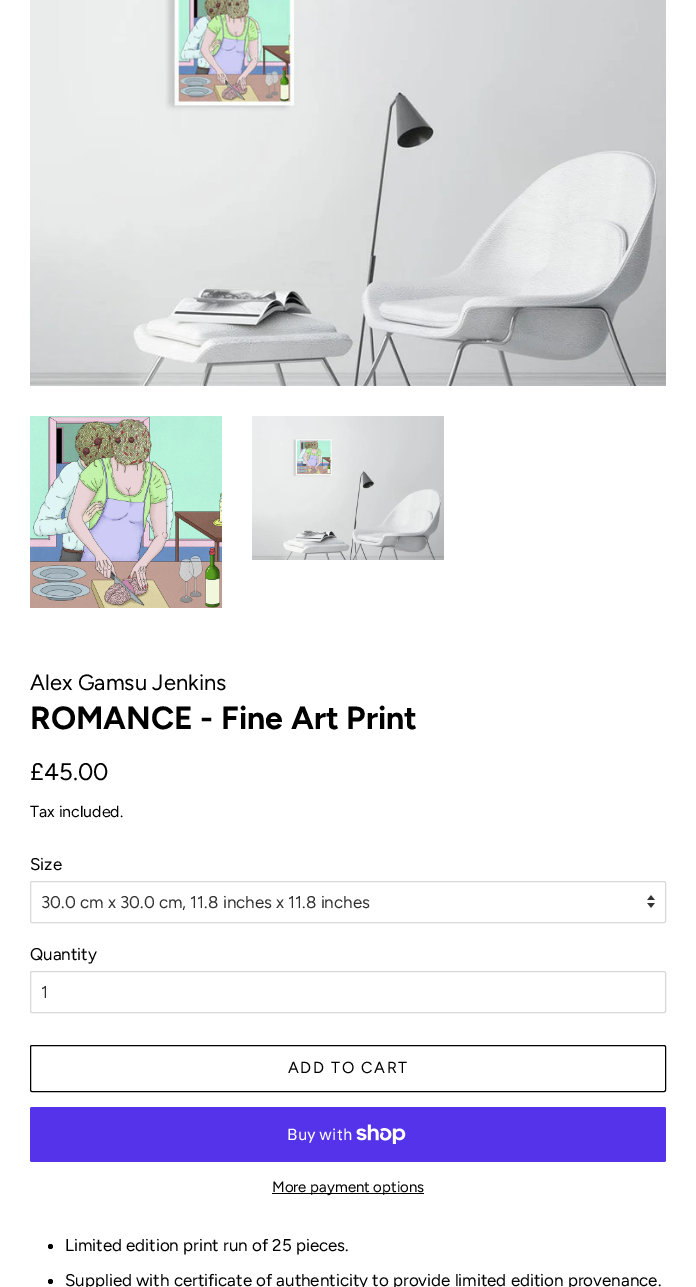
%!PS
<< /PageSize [696 1287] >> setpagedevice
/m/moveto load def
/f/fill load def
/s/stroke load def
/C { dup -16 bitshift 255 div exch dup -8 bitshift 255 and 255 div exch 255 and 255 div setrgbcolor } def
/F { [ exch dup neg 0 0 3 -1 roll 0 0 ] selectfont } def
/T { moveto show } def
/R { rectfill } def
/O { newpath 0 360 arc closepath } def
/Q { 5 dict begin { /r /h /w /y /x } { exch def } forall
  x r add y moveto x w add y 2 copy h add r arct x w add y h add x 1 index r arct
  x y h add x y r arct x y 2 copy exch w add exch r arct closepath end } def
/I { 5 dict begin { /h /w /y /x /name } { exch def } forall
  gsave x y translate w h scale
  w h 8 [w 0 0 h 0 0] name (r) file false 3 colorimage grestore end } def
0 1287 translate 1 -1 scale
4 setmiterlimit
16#FFFFFF C
0 0 696 1287 R
(1.rgb) 30 0 636 386 I
(2.rgb) 30 416 192 192 I
(3.rgb) 252 416 192 144 I
/Figtree-Regular 22 F
16#000000 C
(Alex Gamsu Jenkins) 30 690 T
/Figtree-Bold 32 F
(ROMANCE - Fine Art Print) 30 729 T
/Figtree-Regular 24 F
(£45.00) 30 780 T
/Figtree-Regular 16 F
(Tax included.) 30 817 T
/Figtree-Regular 17 F
(Size) 30 870 T
(4.rgb) 647 895 8 13 I
16#D9D9D9 C
30.5 881.5 635 41 1.5 Q s
16#333333 C
(30.0 cm x 30.0 cm, 11.8 inches x 11.8 inches) 41 908 T
16#000000 C
(Quantity) 30 960 T
16#D9D9D9 C
30.5 971.5 635 41 1.5 Q s
16#333333 C
(1) 41 998 T
16#000000 C
30.5 1045.5 635 46 1.5 Q s
/Figtree-Regular 16 F
288 1073 m 1.6 0 (ADD TO CART) ashow
16#5433EB C
30 1107 636 55 2 Q f
/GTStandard-Regular 16 F
16#FFFFFF C
(Buy with) 287 1140 T
(5.rgb) 356 1124 50 20 I
16#000000 C
272 1193 152 1 R
/Figtree-Regular 15 F
(More payment options) 272 1192 T
50.5 1246.5 2.5 O f
/Figtree-Regular 17 F
(Limited edition print run of 25 pieces.) 65 1251 T
50.5 1281.5 2.5 O f
(Supplied with certificate of authenticity to provide limited edition provenance.) 65 1286 T
showpage
